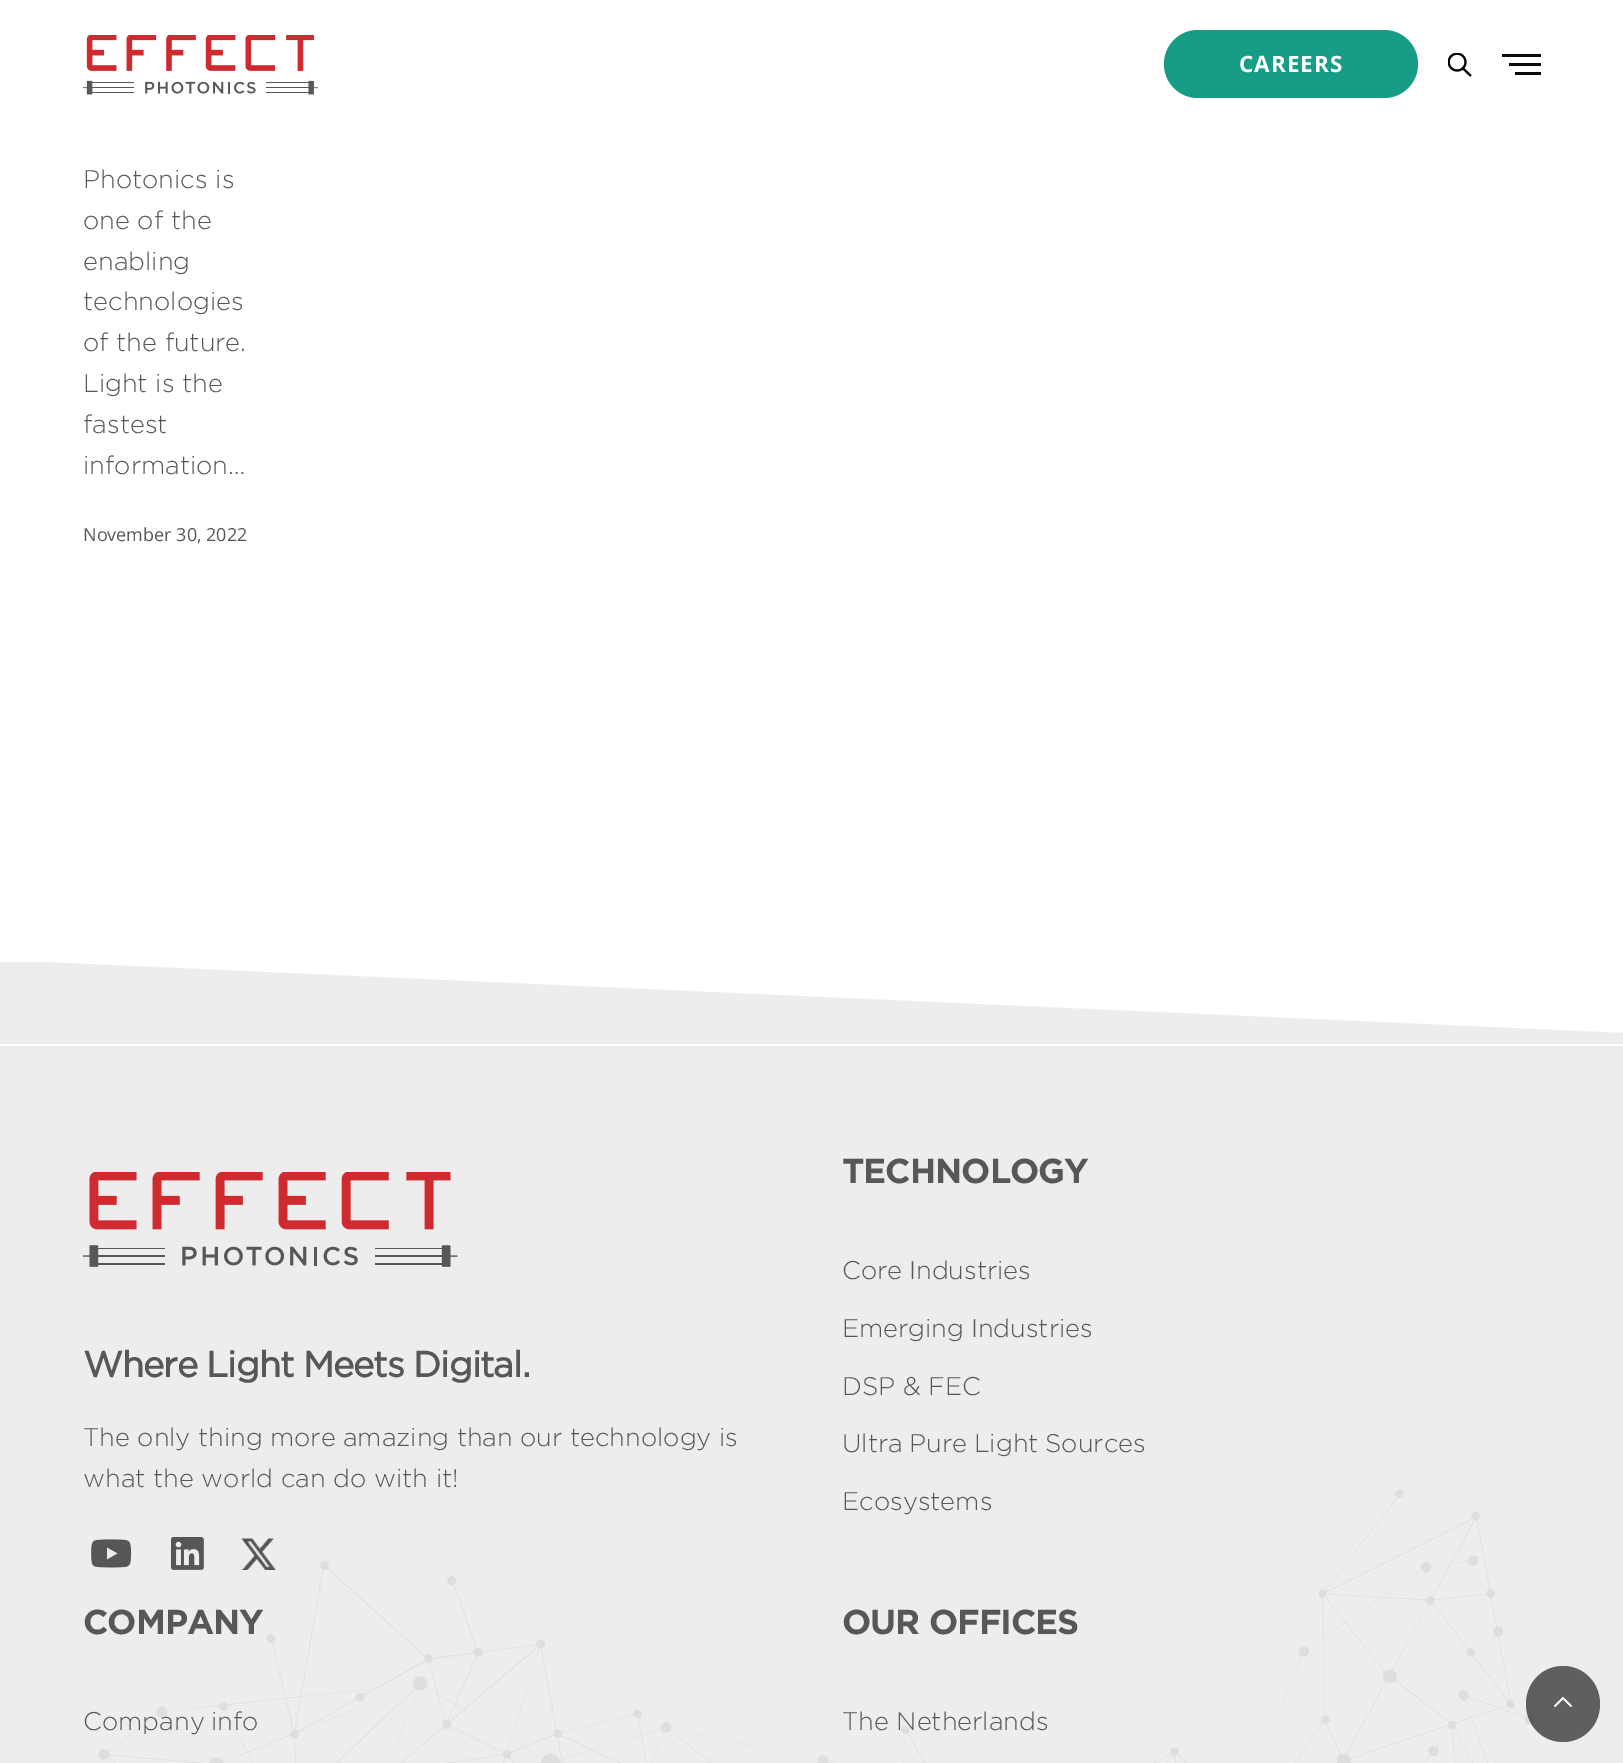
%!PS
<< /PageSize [1623 1763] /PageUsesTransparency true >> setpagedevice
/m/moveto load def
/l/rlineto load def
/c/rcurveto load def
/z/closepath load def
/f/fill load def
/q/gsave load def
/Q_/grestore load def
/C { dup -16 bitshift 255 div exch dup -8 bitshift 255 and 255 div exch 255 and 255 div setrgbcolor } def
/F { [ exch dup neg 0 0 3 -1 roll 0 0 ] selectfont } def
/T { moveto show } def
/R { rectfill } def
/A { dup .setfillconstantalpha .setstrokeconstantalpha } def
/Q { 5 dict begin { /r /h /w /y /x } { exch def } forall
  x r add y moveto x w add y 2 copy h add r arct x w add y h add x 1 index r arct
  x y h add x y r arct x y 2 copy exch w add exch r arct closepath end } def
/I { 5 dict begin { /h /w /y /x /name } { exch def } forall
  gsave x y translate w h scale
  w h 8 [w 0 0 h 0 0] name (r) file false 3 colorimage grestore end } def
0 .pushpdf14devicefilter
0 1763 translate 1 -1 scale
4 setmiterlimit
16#FFFFFF C
0 0 1623 1763 R
(1.rgb) 83 35 235 60 I
16#179C86 C
1164 30 254 68 34 Q f
/OpenSans-Bold 22.5 F
16#FFFFFF C
1239 72 m 1 0 (CAREERS) ashow
(2.rgb) 1448 53 24 24 I
16#090909 C
1502 54 39 3 R
1509 63 32 3 R
1515 72 26 3 R
/Gotham-Light 25.5 F
16#575756 C
(Photonics is) 83 188 T
(one of the) 83 229 T
(enabling) 83 270 T
(technologies) 83 310 T
(of the future.) 83 351 T
(Light is the) 83 392 T
(fastest) 83 433 T
(information…) 83 474 T
/OpenSans-Regular 18 F
(November 30, 2022) 83 541 T
q
0 962 1623 84 rectclip
16#EDEDED C
-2 960 m 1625 73 l 0 11 l -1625 0 l z f
Q_
16#EDEDED C
0 1046 1623 717 R
(3.rgb) 98 1489 1437 274 I
(4.rgb) 83 1172 375 95 I
/Gotham-Bold 36 F
16#575756 C
83 1377 m -1.1 0 (Where Light Meets Digital.) ashow
/Gotham-Light 25.5 F
83 1446 m -.25 0 32 (The only thing more amazing than our technology is) widthshow
(what the world can do with it!) 83 1487 T
(5.rgb) 91 1539 41 29 I
(6.rgb) 171 1537 33 33 I
(7.rgb) 241 1538 35 32 I
/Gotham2-Bold 34.5 F
842 1183 m -1 0 (TECHNOLOGY) ashow
/Gotham-Light 25.5 F
842 1279 m -1 0 32 (Core Industries) widthshow
842 1337 m -1 0 32 (Emerging Industries) widthshow
(DSP & FEC) 842 1395 T
842 1452 m -1 0 32 (Ultra Pure Light Sources) widthshow
(Ecosystems) 842 1510 T
/Gotham2-Bold 34.5 F
83 1634 m -1 0 (COMPANY) ashow
/Gotham-Light 25.5 F
83 1730 m -1 0 32 (Company info) widthshow
/Gotham2-Bold 34.5 F
842 1634 m -1 0 (OUR OFFICES) ashow
/Gotham-Light 25.5 F
(The Netherlands) 842 1730 T
0.6 A
16#000000 C
1600 1704 m 0 21 -16 38 -37 38 c -21 0 -37 -17 -37 -38 c 0 -21 16 -38 37 -38 c 21 0 37 17 37 38 c z f
1 A
(8.rgb) 1554 1697 18 10 I
.poppdf14devicefilter showpage
